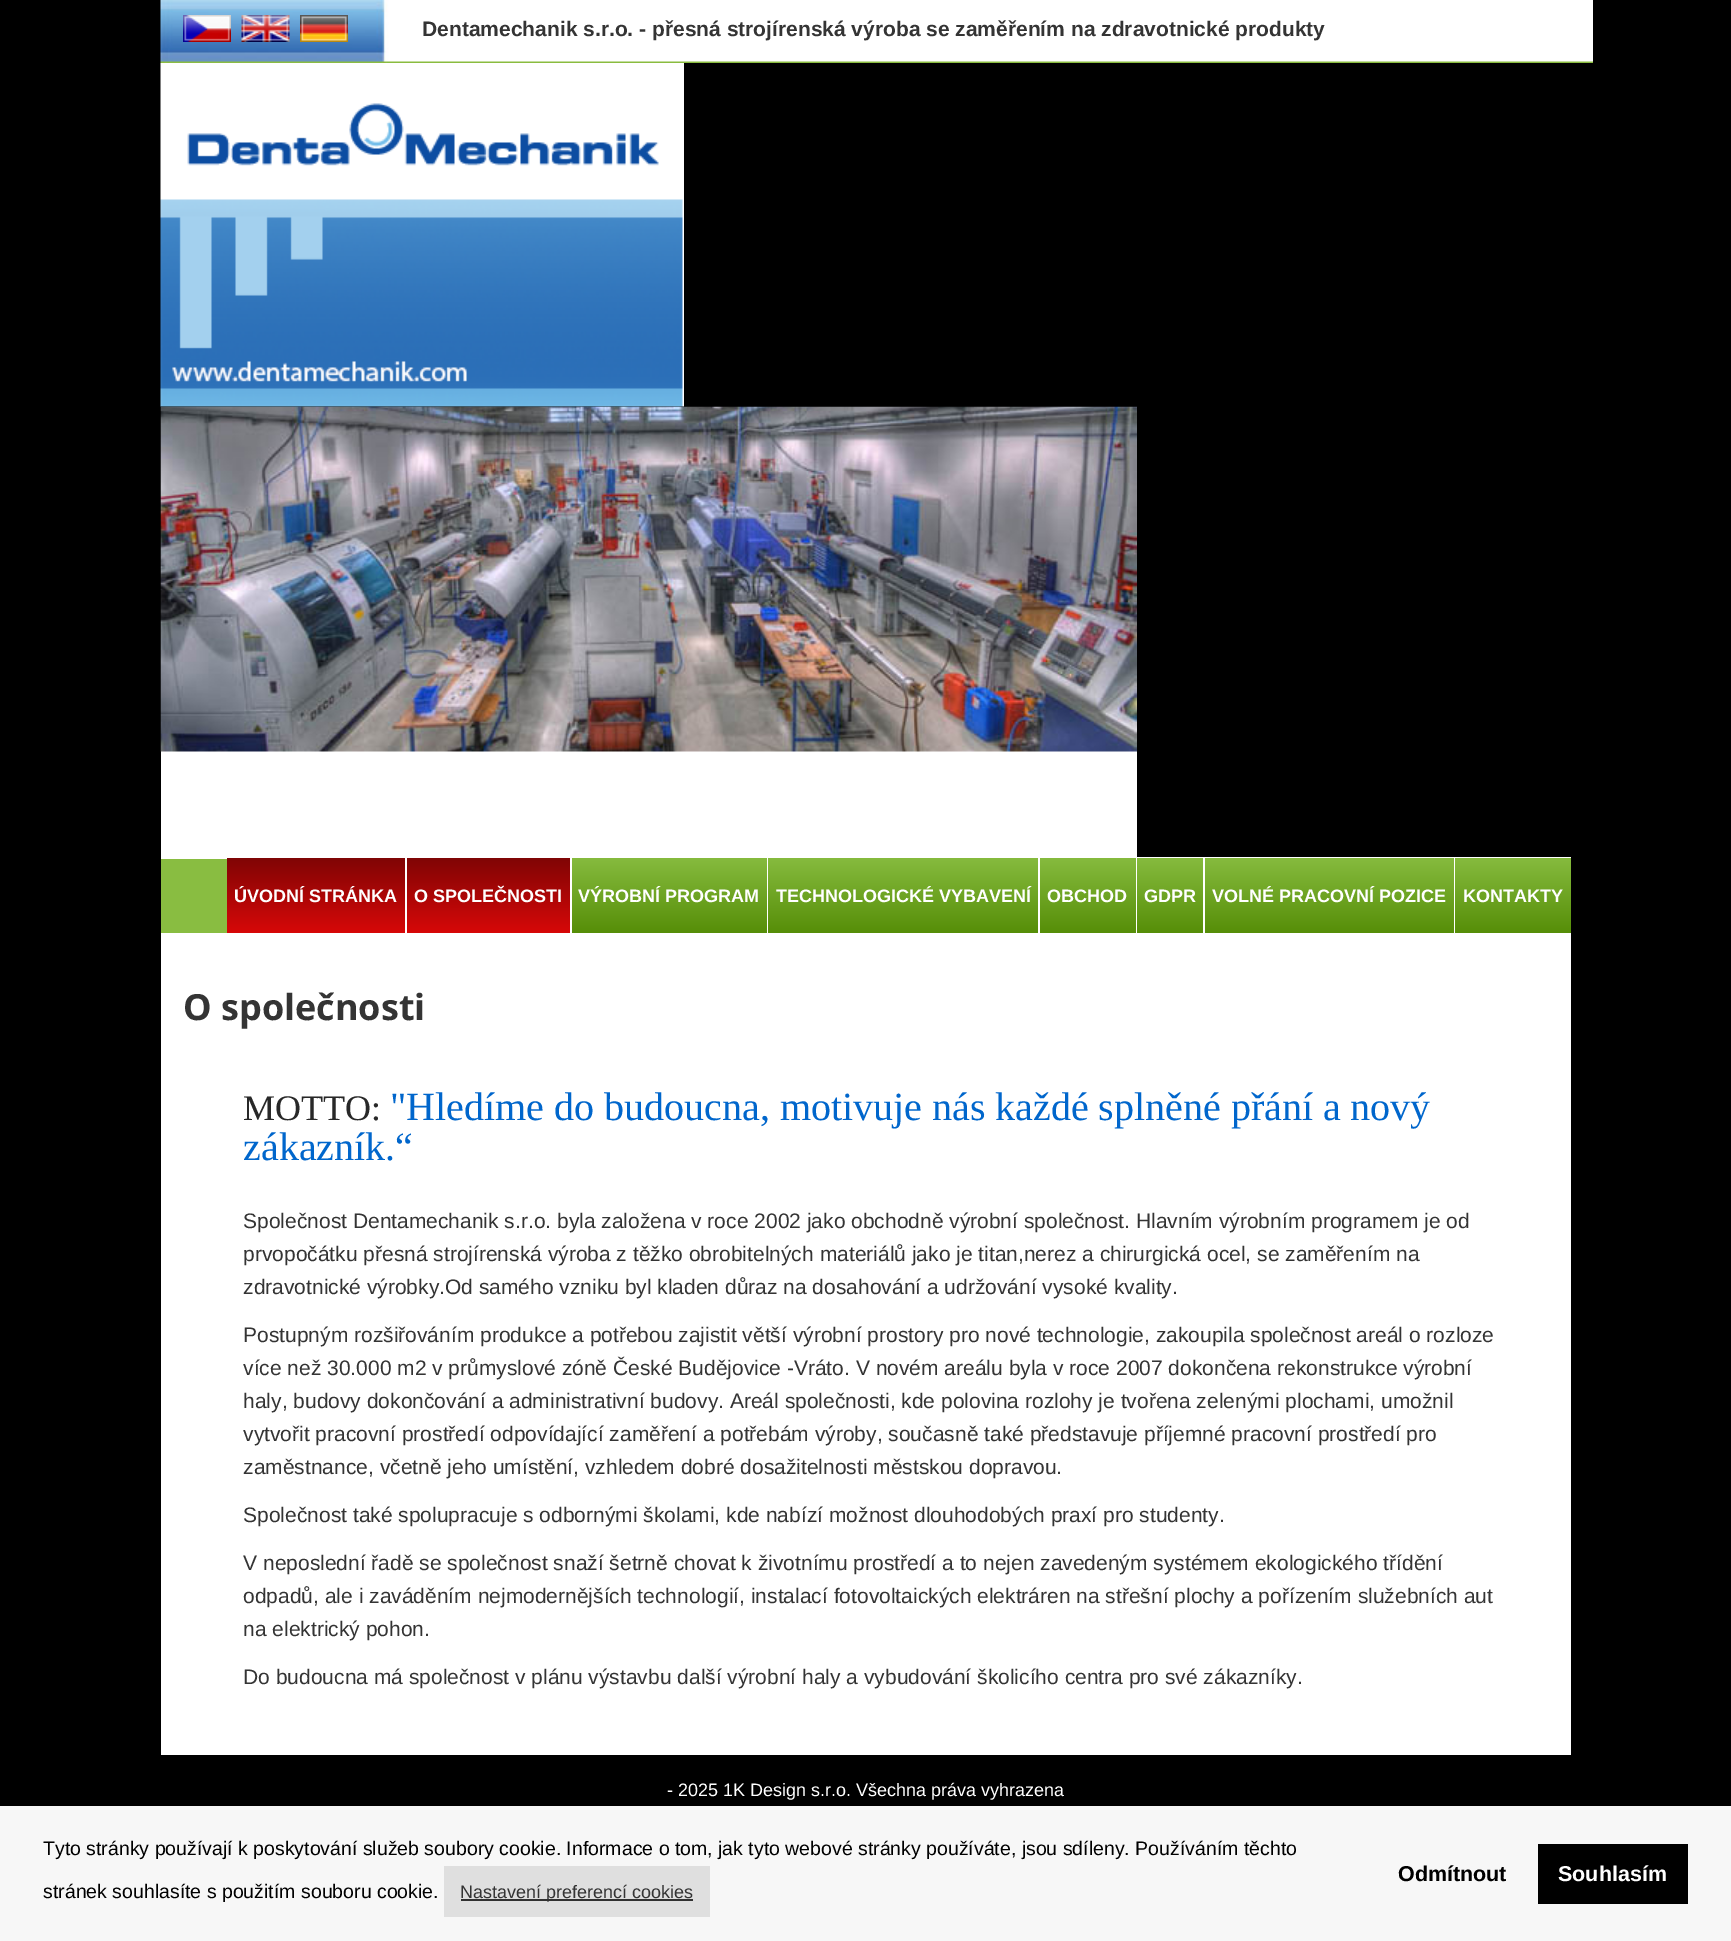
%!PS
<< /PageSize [1731 1941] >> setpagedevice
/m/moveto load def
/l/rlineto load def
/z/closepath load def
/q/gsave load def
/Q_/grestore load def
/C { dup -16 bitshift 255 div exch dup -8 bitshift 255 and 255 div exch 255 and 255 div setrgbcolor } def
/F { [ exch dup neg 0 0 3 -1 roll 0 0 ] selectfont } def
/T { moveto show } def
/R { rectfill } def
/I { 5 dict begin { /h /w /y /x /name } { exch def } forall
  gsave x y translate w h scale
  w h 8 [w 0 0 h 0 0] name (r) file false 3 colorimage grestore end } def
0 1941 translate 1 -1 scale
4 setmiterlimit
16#000000 C
0 0 1731 1941 R
(1.rgb) 160 0 1433 63 I
(2.rgb) 183 15 48 27 I
(3.rgb) 241 15 49 27 I
(4.rgb) 300 15 48 27 I
/LiberationSans-Bold 21 F
16#343434 C
(Dentamechanik s.r.o. - přesná strojírenská výroba se zaměřením na zdravotnické produkty) 422 36 T
(5.rgb) 160 63 524 344 I
16#FFFFFF C
161 751 976 106 R
(6.rgb) 160 406 977 346 I
16#89BD41 C
161 859 66 74 R
16#FFFFFF C
161 857 1410 2 R
q 227 858 m 178 0 l 0 75 l -178 0 l z clip newpath
<< /ShadingType 2 /ColorSpace /DeviceRGB /Coords [316 858 316 933] /Extend [true true] /Function << /FunctionType 2 /Domain [0 1] /C0 [.502 .02 .02] /C1 [.843 .031 .031] /N 1 >> >> shfill Q_
405 858 2 75 R
/LiberationSans-Bold 18 F
(ÚVODNÍ STRÁNKA) 234 902 T
q 407 858 m 163 0 l 0 75 l -163 0 l z clip newpath
<< /ShadingType 2 /ColorSpace /DeviceRGB /Coords [488 858 488 933] /Extend [true true] /Function << /FunctionType 2 /Domain [0 1] /C0 [.502 .02 .02] /C1 [.843 .031 .031] /N 1 >> >> shfill Q_
570 858 2 75 R
(O SPOLEČNOSTI) 414 902 T
q 572 858 m 195 0 l 0 75 l -195 0 l z clip newpath
<< /ShadingType 2 /ColorSpace /DeviceRGB /Coords [669 858 669 933] /Extend [true true] /Function << /FunctionType 2 /Domain [0 1] /C0 [.525 .733 .243] /C1 [.337 .557 .031] /N 1 >> >> shfill Q_
767 858 1 75 R
(VÝROBNÍ PROGRAM) 578 902 T
q 768 858 m 270 0 l 0 75 l -270 0 l z clip newpath
<< /ShadingType 2 /ColorSpace /DeviceRGB /Coords [903 858 903 933] /Extend [true true] /Function << /FunctionType 2 /Domain [0 1] /C0 [.525 .733 .243] /C1 [.337 .557 .031] /N 1 >> >> shfill Q_
1038 858 2 75 R
(TECHNOLOGICKÉ VYBAVENÍ) 776 902 T
q 1040 858 m 96 0 l 0 75 l -96 0 l z clip newpath
<< /ShadingType 2 /ColorSpace /DeviceRGB /Coords [1088 858 1088 933] /Extend [true true] /Function << /FunctionType 2 /Domain [0 1] /C0 [.525 .733 .243] /C1 [.337 .557 .031] /N 1 >> >> shfill Q_
1136 858 1 75 R
(OBCHOD) 1047 902 T
q 1137 858 m 66 0 l 0 75 l -66 0 l z clip newpath
<< /ShadingType 2 /ColorSpace /DeviceRGB /Coords [1170 858 1170 933] /Extend [true true] /Function << /FunctionType 2 /Domain [0 1] /C0 [.525 .733 .243] /C1 [.337 .557 .031] /N 1 >> >> shfill Q_
1203 858 2 75 R
(GDPR) 1144 902 T
q 1205 858 m 249 0 l 0 75 l -249 0 l z clip newpath
<< /ShadingType 2 /ColorSpace /DeviceRGB /Coords [1329 858 1329 933] /Extend [true true] /Function << /FunctionType 2 /Domain [0 1] /C0 [.525 .733 .243] /C1 [.337 .557 .031] /N 1 >> >> shfill Q_
1454 858 1 75 R
(VOLNÉ PRACOVNÍ POZICE) 1212 902 T
q 1455 858 m 116 0 l 0 75 l -116 0 l z clip newpath
<< /ShadingType 2 /ColorSpace /DeviceRGB /Coords [1513 858 1513 933] /Extend [true true] /Function << /FunctionType 2 /Domain [0 1] /C0 [.525 .733 .243] /C1 [.337 .557 .031] /N 1 >> >> shfill Q_
(KONTAKTY) 1463 902 T
161 933 1410 822 R
/OpenSans-Bold 36 F
16#343434 C
(O společnosti) 183 1020 T
/LiberationSerif-Regular 36 F
16#282828 C
(MOTTO:) 243 1120 T
/LiberationSerif-Regular 40 F
16#0066CC C
("Hledíme do budoucna, motivuje nás každé splněné přání a nový) 390 1120 T
(zákazník.“) 243 1160 T
/LiberationSans-Regular 21 F
16#343434 C
(Společnost Dentamechanik s.r.o. byla založena v roce 2002 jako obchodně výrobní společnost. Hlavním výrobním programem je od) 243 1228 T
(prvopočátku přesná strojírenská výroba z těžko obrobitelných materiálů jako je titan,nerez a chirurgická ocel, se zaměřením na) 243 1261 T
(zdravotnické výrobky.Od samého vzniku byl kladen důraz na dosahování a udržování vysoké kvality.) 243 1294 T
(Postupným rozšiřováním produkce a potřebou zajistit větší výrobní prostory pro nové technologie, zakoupila společnost areál o rozloze) 243 1342 T
(více než 30.000 m2 v průmyslové zóně České Budějovice -Vráto. V novém areálu byla v roce 2007 dokončena rekonstrukce výrobní) 243 1375 T
(haly, budovy dokončování a administrativní budovy. Areál společnosti, kde polovina rozlohy je tvořena zelenými plochami, umožnil) 243 1408 T
(vytvořit pracovní prostředí odpovídající zaměření a potřebám výroby, současně také představuje příjemné pracovní prostředí pro) 243 1441 T
(zaměstnance, včetně jeho umístění, vzhledem dobré dosažitelnosti městskou dopravou.) 243 1474 T
(Společnost také spolupracuje s odbornými školami, kde nabízí možnost dlouhodobých praxí pro studenty.) 243 1522 T
(V neposlední řadě se společnost snaží šetrně chovat k životnímu prostředí a to nejen zavedeným systémem ekologického třídění) 243 1570 T
(odpadů, ale i zaváděním nejmodernějších technologií, instalací fotovoltaických elektráren na střešní plochy a pořízením služebních aut) 243 1603 T
(na elektrický pohon.) 243 1636 T
(Do budoucna má společnost v plánu výstavbu další výrobní haly a vybudování školicího centra pro své zákazníky.) 243 1684 T
/LiberationSans-Regular 18 F
16#FFFFFF C
(- 2025 1K Design s.r.o. Všechna práva vyhrazena) 667 1796 T
16#F7F7F7 C
0 1806 1731 135 R
/LiberationSans-Regular 19.5 F
16#000000 C
(Tyto stránky používají k poskytování služeb soubory cookie. Informace o tom, jak tyto webové stránky používáte, jsou sdíleny. Používáním těchto) 43 1855 T
(stránek souhlasíte s použitím souboru cookie.) 43 1898 T
16#DFDFDF C
444 1866 266 51 R
16#313131 C
461 1899 232 2 R
/LiberationSans-Regular 18 F
16#343434 C
(Nastavení preferencí cookies) 460 1898 T
/LiberationSans-Bold 21.5 F
16#000000 C
(Odmítnout) 1398 1881 T
1538 1844 150 60 R
16#FFFFFF C
(Souhlasím) 1558 1881 T
showpage
